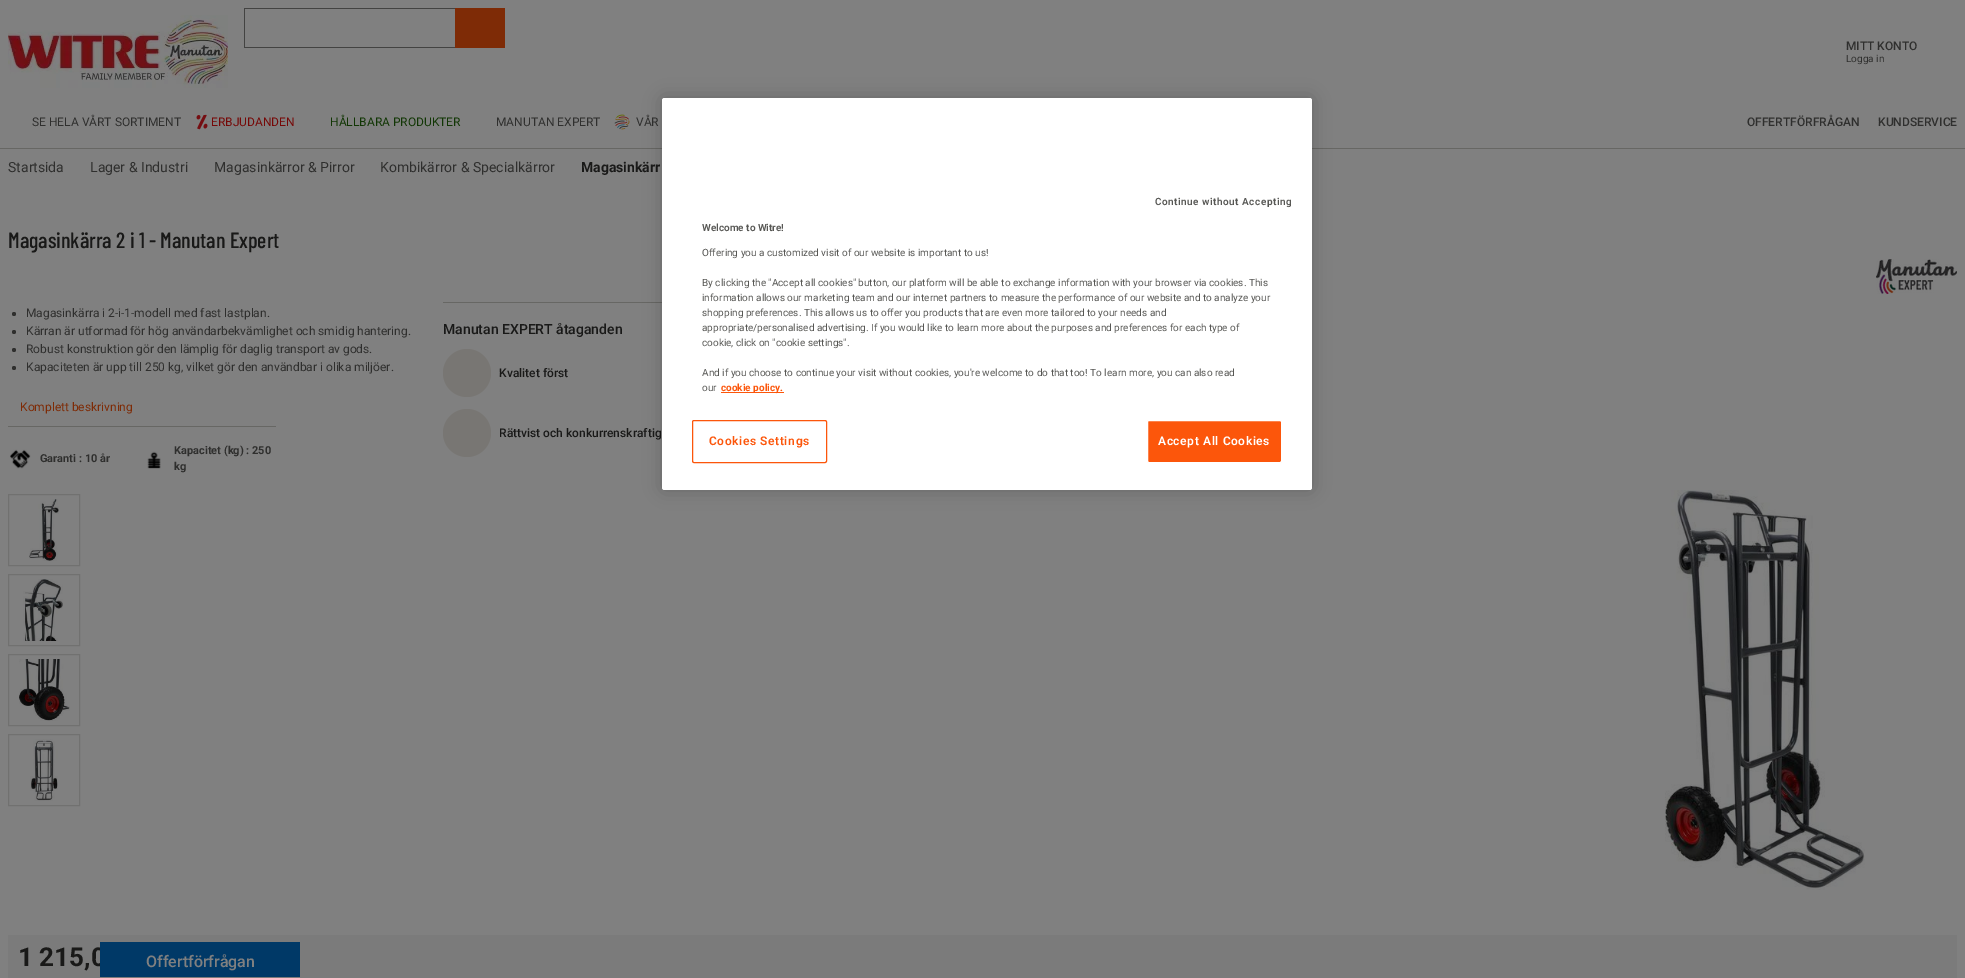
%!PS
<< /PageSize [1965 978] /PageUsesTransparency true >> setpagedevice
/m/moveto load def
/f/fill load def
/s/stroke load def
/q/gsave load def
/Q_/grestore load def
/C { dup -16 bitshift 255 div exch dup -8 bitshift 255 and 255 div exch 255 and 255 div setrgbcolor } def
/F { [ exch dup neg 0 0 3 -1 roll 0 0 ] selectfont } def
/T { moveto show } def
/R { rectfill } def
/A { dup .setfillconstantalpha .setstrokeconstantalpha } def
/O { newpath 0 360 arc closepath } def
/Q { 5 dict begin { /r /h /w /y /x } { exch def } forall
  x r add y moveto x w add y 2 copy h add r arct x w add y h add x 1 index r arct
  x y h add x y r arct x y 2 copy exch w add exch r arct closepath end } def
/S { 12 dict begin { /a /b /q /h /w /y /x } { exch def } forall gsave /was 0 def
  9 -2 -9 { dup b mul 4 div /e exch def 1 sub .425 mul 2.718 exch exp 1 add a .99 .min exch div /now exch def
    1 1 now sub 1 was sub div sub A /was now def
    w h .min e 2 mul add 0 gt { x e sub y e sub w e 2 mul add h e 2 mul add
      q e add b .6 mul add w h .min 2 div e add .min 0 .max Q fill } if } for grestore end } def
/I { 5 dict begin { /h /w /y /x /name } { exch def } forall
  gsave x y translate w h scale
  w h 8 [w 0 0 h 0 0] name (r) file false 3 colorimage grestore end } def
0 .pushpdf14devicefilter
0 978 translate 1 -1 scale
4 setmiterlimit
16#808080 C
0 0 1965 978 R
16#676764 C
0 148 1965 1 R
(1.rgb) 8 15 220 73 I
16#434342 C
244 8 211 1 R
244 47 211 1 R
244 8 1 40 R
16#7E2B06 C
455 8 50 40 R
/Roboto-Medium 12 F
16#2F2F2E C
(MITT KONTO) 1846 50 T
/Roboto-Regular 10 F
(Logga in) 1846 62 T
/Roboto-Regular 12 F
(SE HELA VÅRT SORTIMENT) 32 126 T
(2.rgb) 196 114 12 16 I
16#760807 C
(ERBJUDANDEN) 211 126 T
16#113604 C
(HÅLLBARA PRODUKTER) 330 126 T
16#2F2F2E C
(MANUTAN EXPERT) 496 126 T
(3.rgb) 614 114 16 16 I
(VÅR) 636 126 T
/Roboto-Medium 12 F
(OFFERTFÖRFRÅGAN) 1747 126 T
(KUNDSERVICE) 1878 126 T
/Roboto-Regular 14 F
(Startsida) 8 172 T
(Lager & Industri) 90 172 T
(Magasinkärror & Pirror) 214 172 T
(Kombikärror & Specialkärror) 380 172 T
/Roboto-Bold 14 F
16#191918 C
(Magasinkärr) 581 172 T
/BarlowCondensed-Medium 22 F
(Magasinkärra 2 i 1 - Manutan Expert) 8 248 T
(4.rgb) 1876 259 81 35 I
16#2F2F2E C
14 314 2 O f
/Roboto-Regular 12 F
(Magasinkärra i 2-i-1-modell med fast lastplan.) 26 317 T
14 332 2 O f
(Kärran är utformad för hög användarbekvämlighet och smidig hantering.) 26 335 T
14 350 2 O f
(Robust konstruktion gör den lämplig för daglig transport av gods.) 26 353 T
14 368 2 O f
(Kapaciteten är upp till 250 kg, vilket gör den användbar i olika miljöer.) 26 371 T
16#7E2B06 C
(Komplett beskrivning) 20 411 T
16#676764 C
8 426 268 1 R
(5.rgb) 10 449 21 20 I
/Roboto-Bold 11 F
16#2F2F2E C
(Garanti : 10 år) 40 462 T
(6.rgb) 147 451 14 18 I
(Kapacitet \(kg\) : 250) 174 454 T
(kg) 174 470 T
16#676764 C
443 302 219 1 R
/Roboto-Medium 14 F
16#191918 C
(Manutan EXPERT åtaganden) 443 334 T
16#787673 C
467 373 24 O f
/Roboto-Medium 12 F
16#191918 C
(Kvalitet först) 499 377 T
16#787673 C
467 433 24 O f
16#191918 C
(Rättvist och konkurrenskraftig) 499 437 T
16#717170 C
8.5 494.5 71 71 rectstroke
(7.rgb) 29 499 30 62 I
8.5 574.5 71 71 rectstroke
(8.rgb) 23 579 40 62 I
8.5 654.5 71 71 rectstroke
(9.rgb) 19 659 51 62 I
8.5 734.5 71 71 rectstroke
(10.rgb) 30 739 28 62 I
(11.rgb) 1665 490 200 400 I
16#7B7B7B C
8 935 1949 43 R
/Roboto-Bold 26 F
16#191918 C
(1 215,0) 18 966 T
16#003967 C
100 942 200 35 R
/Roboto-Medium 16 F
16#808080 C
(Offertförfrågan) 146 967 T
16#000000 C
662 98 650 392 2.5 9 .2 S
16#FFFFFF C
662 98 650 392 2.5 Q f
/Roboto-SemiBold 10 F
16#575754 C
1155 205 m .5 0 (Continue without Accepting) ashow
(Welcome to Witre!) 702 231 T
/Roboto-Regular 10 F
(Offering you a customized visit of our website is important to us!) 702 256 T
(By clicking the "Accept all cookies" button, our platform will be able to exchange information with your browser via cookies. This) 702 286 T
(information allows our marketing team and our internet partners to measure the performance of our website and to analyze your) 702 301 T
(shopping preferences. This allows us to offer you products that are even more tailored to your needs and) 702 316 T
(appropriate/personalised advertising. If you would like to learn more about the purposes and preferences for each type of) 702 331 T
(cookie, click on "cookie settings".) 702 346 T
(And if you choose to continue your visit without cookies, you're welcome to do that too! To learn more, you can also read) 702 376 T
(our) 702 391 T
16#FC560B C
721 392 63 1 R
/Roboto-Bold 10 F
(cookie policy.) 721 391 T
692.5 420.5 134 42 1.5 Q s
/Roboto-SemiBold 12 F
709 445 m .6 0 (Cookies Settings) ashow
1147.5 420.5 134 42 1.5 Q q f Q_
16#FFFFFF C
s
1158 445 m .6 0 (Accept All Cookies) ashow
.poppdf14devicefilter showpage
